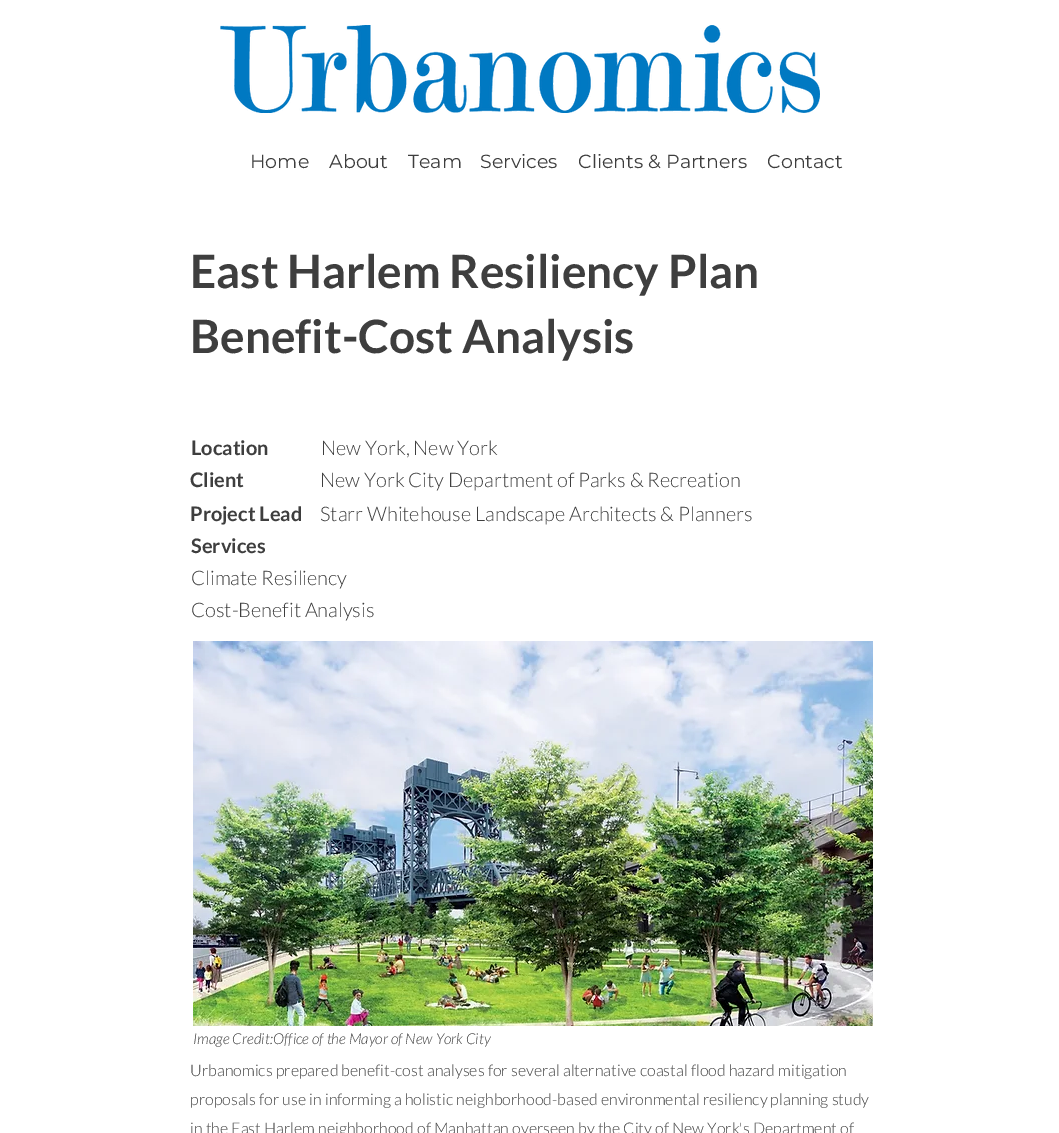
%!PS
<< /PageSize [1059 1133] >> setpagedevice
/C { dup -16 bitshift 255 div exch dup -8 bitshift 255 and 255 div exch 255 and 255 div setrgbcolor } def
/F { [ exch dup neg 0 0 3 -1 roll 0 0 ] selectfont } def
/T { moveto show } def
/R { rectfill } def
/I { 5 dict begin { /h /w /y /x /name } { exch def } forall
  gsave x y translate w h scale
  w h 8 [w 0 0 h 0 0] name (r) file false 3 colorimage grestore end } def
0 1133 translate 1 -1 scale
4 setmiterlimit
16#FFFFFF C
0 0 1059 1133 R
(1.rgb) 220 25 600 88 I
/Montserrat-Regular 19 F
16#3E3E3E C
(Home) 250 168 T
(About) 329 168 T
(Team) 408 168 T
(Services) 480 168 T
(Clients & Partners) 578 168 T
(Contact) 767 168 T
/Lato-Bold 46 F
(East Harlem Resiliency Plan) 190 288 T
(Benefit-Cost Analysis) 190 353 T
/Lato-Bold 20 F
(Location) 191 455 T
/Lato-Light 20 F
(New York, New York) 321 455 T
/Lato-Bold 20 F
(Client) 190 487 T
/Lato-Light 20 F
(New York City Department of Parks & Recreation) 320 487 T
/Lato-Bold 20 F
(Project Lead) 190 521 T
/Lato-Light 20 F
(Starr Whitehouse Landscape Architects & Planners) 320 521 T
/Lato-Bold 20 F
(Services) 191 553 T
/Lato-Light 20 F
(Climate Resiliency) 191 585 T
(Cost-Benefit Analysis) 191 617 T
(2.rgb) 193 641 680 385 I
/Lato-LightItalic 15 F
(Image Credit:) 193 1044 T
(Office of the Mayor of New York City) 273 1044 T
/Lato-Light 16 F
(Urbanomics prepared benefit-cost analyses for several alternative coastal flood hazard mitigation) 190 1076 T
(proposals for use in informing a holistic neighborhood-based environmental resiliency planning study) 190 1105 T
(in the East Harlem neighborhood of Manhattan overseen by the City of New York's Department of) 190 1134 T
showpage
